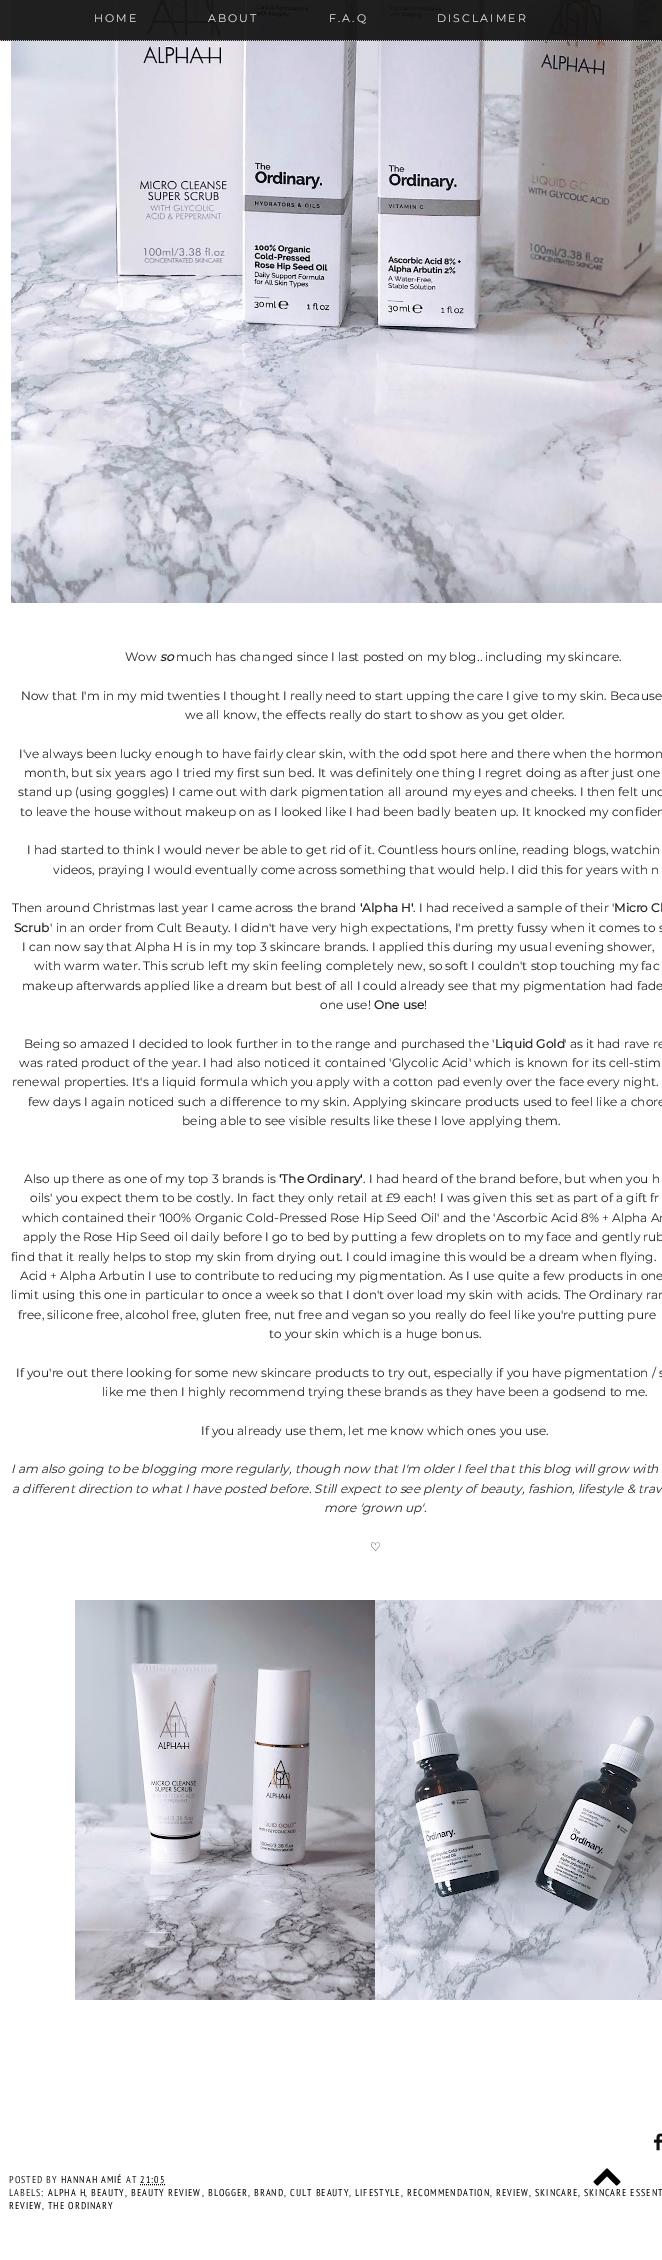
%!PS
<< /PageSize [662 2260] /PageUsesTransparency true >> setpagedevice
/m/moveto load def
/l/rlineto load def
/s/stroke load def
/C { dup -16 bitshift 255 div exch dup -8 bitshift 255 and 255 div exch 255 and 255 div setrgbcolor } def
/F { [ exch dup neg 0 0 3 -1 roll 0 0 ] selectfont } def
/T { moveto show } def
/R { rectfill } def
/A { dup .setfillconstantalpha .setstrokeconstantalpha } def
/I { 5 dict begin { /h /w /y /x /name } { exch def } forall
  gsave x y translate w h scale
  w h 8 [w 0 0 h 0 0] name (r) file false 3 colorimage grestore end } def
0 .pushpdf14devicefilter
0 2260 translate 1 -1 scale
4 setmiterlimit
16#FFFFFF C
0 0 662 2260 R
(1.rgb) 11 0 651 603 I
0.93 A
16#111111 C
0 0 662 41 R
16#CCCCCC C
[1 1] 0 setdash
0 40.5 m 662 0 l s
/Montserrat-Thin 11 F
1 A
16#EFEFEF C
94 22 m 2 0 (HOME) ashow
208 22 m 2 0 (ABOUT) ashow
329 22 m 2 0 (F.A.Q) ashow
437 22 m 2 0 (DISCLAIMER) ashow
/Montserrat-Thin 12.1 F
16#222222 C
(Wow) 125 661 T
/Montserrat-BoldItalic 12.1 F
(so) 160 661 T
/Montserrat-Thin 12.1 F
(much has changed since I last posted on my blog) 176 661 T
/Montserrat-ThinItalic 12.1 F
(..) 477 661 T
/Montserrat-Thin 12.1 F
(including my skincare.) 485 661 T
(Now that I'm in my mid twenties I thought I really need to start upping the care I give to my skin. Because) 21 700 T
(we all know, the effects really do start to show as you get older.) 185 719 T
(I've always been lucky enough to have fairly clear skin, with the odd spot here and there when the hormon) 19 758 T
(month, but six years ago I tried my first sun bed. It was definitely one thing I regret doing as after just one) 24 777 T
(stand up \(using goggles\) I came out with dark pigmentation all around my eyes and cheeks. I then felt unc) 18 796 T
(to leave the house without makeup on as I looked like I had been badly beaten up. It knocked my confiden) 20 816 T
(I had started to think I would never be able to get rid of it. Countless hours online, reading blogs, watchin) 27 854 T
(videos, praying I would eventually come across something that would help. I did this for years with n) 53 874 T
(Then around Christmas last year I came across the brand) 12 912 T
/Montserrat-Bold 12.1 F
('Alpha H') 360 912 T
/Montserrat-Thin 12.1 F
(. I had received a sample of their ') 413 912 T
/Montserrat-Bold 12.1 F
(Micro Cl) 614 912 T
(Scrub) 14 932 T
/Montserrat-Thin 12.1 F
(' in an order from Cult Beauty. I didn't have very high expectations, I'm pretty fussy when it comes to s) 50 932 T
(I can now say that Alpha H is in my top 3 skincare brands. I applied this during my usual evening shower,) 22 951 T
(with warm water. This scrub left my skin feeling completely new, so soft I couldn't stop touching my fac) 34 970 T
(makeup afterwards applied like a dream but best of all I could already see that my pigmentation had fade) 22 990 T
(one use!) 320 1009 T
/Montserrat-Bold 12.1 F
(One use) 374 1009 T
/Montserrat-Thin 12.1 F
(!) 424 1009 T
(Being so amazed I decided to look further in to the range and purchased the ') 24 1048 T
/Montserrat-Bold 12.1 F
(Liquid Gold) 495 1048 T
/Montserrat-Thin 12.1 F
(' as it had rave re) 564 1048 T
(was rated product of the year. I had also noticed it contained 'Glycolic Acid' which is known for its cell-stim) 19 1067 T
(renewal properties. It's a liquid formula which you apply with a cotton pad evenly over the face every night.) 12 1086 T
(few days I again noticed such a difference to my skin. Applying skincare products used to feel like a chore) 28 1106 T
(being able to see visible results like these I love applying them.) 182 1125 T
(Also up there as one of my top 3 brands is) 24 1183 T
/Montserrat-Bold 12.1 F
('The Ordinary') 279 1183 T
/Montserrat-Thin 12.1 F
(. I had heard of the brand before, but when you h) 363 1183 T
(oils' you expect them to be costly. In fact they only retail at £9 each! I was given this set as part of a gift fr) 30 1202 T
(which contained their '100% Organic Cold-Pressed Rose Hip Seed Oil' and the 'Ascorbic Acid 8% + Alpha Ar) 22 1222 T
(apply the Rose Hip Seed oil daily before I go to bed by putting a few droplets on to my face and gently rub) 23 1241 T
(find that it really helps to stop my skin from drying out. I could imagine this would be a dream when flying.) 11 1261 T
(Acid + Alpha Arbutin I use to contribute to reducing my pigmentation. As I use quite a few products in one) 20 1280 T
(limit using this one in particular to once a week so that I don't over load my skin with acids. The Ordinary ran) 11 1299 T
(free, silicone free, alcohol free, gluten free, nut free and vegan so you really do feel like you're putting pure) 18 1319 T
(to your skin which is a huge bonus.) 269 1338 T
(If you're out there looking for some new skincare products to try out, especially if you have pigmentation / s) 16 1377 T
(like me then I highly recommend trying these brands as they have been a godsend to me.) 102 1396 T
(If you already use them, let me know which ones you use.) 201 1435 T
/Montserrat-ThinItalic 12.1 F
(I am also going to be blogging more regularly, though now that I'm older I feel that this blog will grow with) 11 1473 T
(a different direction to what I have posted before. Still expect to see plenty of beauty, fashion, lifestyle & trav) 12 1493 T
(more 'grown up'.) 324 1512 T
/DejaVuSans-Regular 12.1 F
(♡) 370 1551 T
(2.rgb) 75 1600 300 400 I
(3.rgb) 375 1600 287 400 I
(4.rgb) 653 2133 9 18 I
/PTSansNarrow-Regular 10 F
9 2183 m 1 0 (POSTED BY) ashow
16#000000 C
61 2183 m 1 0 (HANNAH AMIÉ) ashow
16#222222 C
126 2183 m 1 0 (AT) ashow
16#000000 C
140 2183 m 1 0 (21:05) ashow
140 2184.5 m 25 0 l s
16#222222 C
9 2196 m 1 0 (LABELS:) ashow
16#000000 C
48 2196 m 1 0 (ALPHA H) ashow
16#222222 C
85 2196 m 1 0 (,) ashow
16#000000 C
91 2196 m 1 0 (BEAUTY) ashow
16#222222 C
125 2196 m 1 0 (,) ashow
16#000000 C
131 2196 m 1 0 (BEAUTY REVIEW) ashow
16#222222 C
202 2196 m 1 0 (,) ashow
16#000000 C
208 2196 m 1 0 (BLOGGER) ashow
16#222222 C
248 2196 m 1 0 (,) ashow
16#000000 C
254 2196 m 1 0 (BRAND) ashow
16#222222 C
284 2196 m 1 0 (,) ashow
16#000000 C
290 2196 m 1 0 (CULT BEAUTY) ashow
16#222222 C
349 2196 m 1 0 (,) ashow
16#000000 C
355 2196 m 1 0 (LIFESTYLE) ashow
16#222222 C
401 2196 m 1 0 (,) ashow
16#000000 C
407 2196 m 1 0 (RECOMMENDATION) ashow
16#222222 C
490 2196 m 1 0 (,) ashow
16#000000 C
496 2196 m 1 0 (REVIEW) ashow
16#222222 C
529 2196 m 1 0 (,) ashow
16#000000 C
535 2196 m 1 0 (SKINCARE) ashow
16#222222 C
578 2196 m 1 0 (,) ashow
16#000000 C
584 2196 m 1 0 (SKINCARE ESSENT) ashow
9 2209 m 1 0 (REVIEW) ashow
16#222222 C
42 2209 m 1 0 (,) ashow
16#000000 C
48 2209 m 1 0 (THE ORDINARY) ashow
(5.rgb) 593 2168 28 18 I
.poppdf14devicefilter showpage
